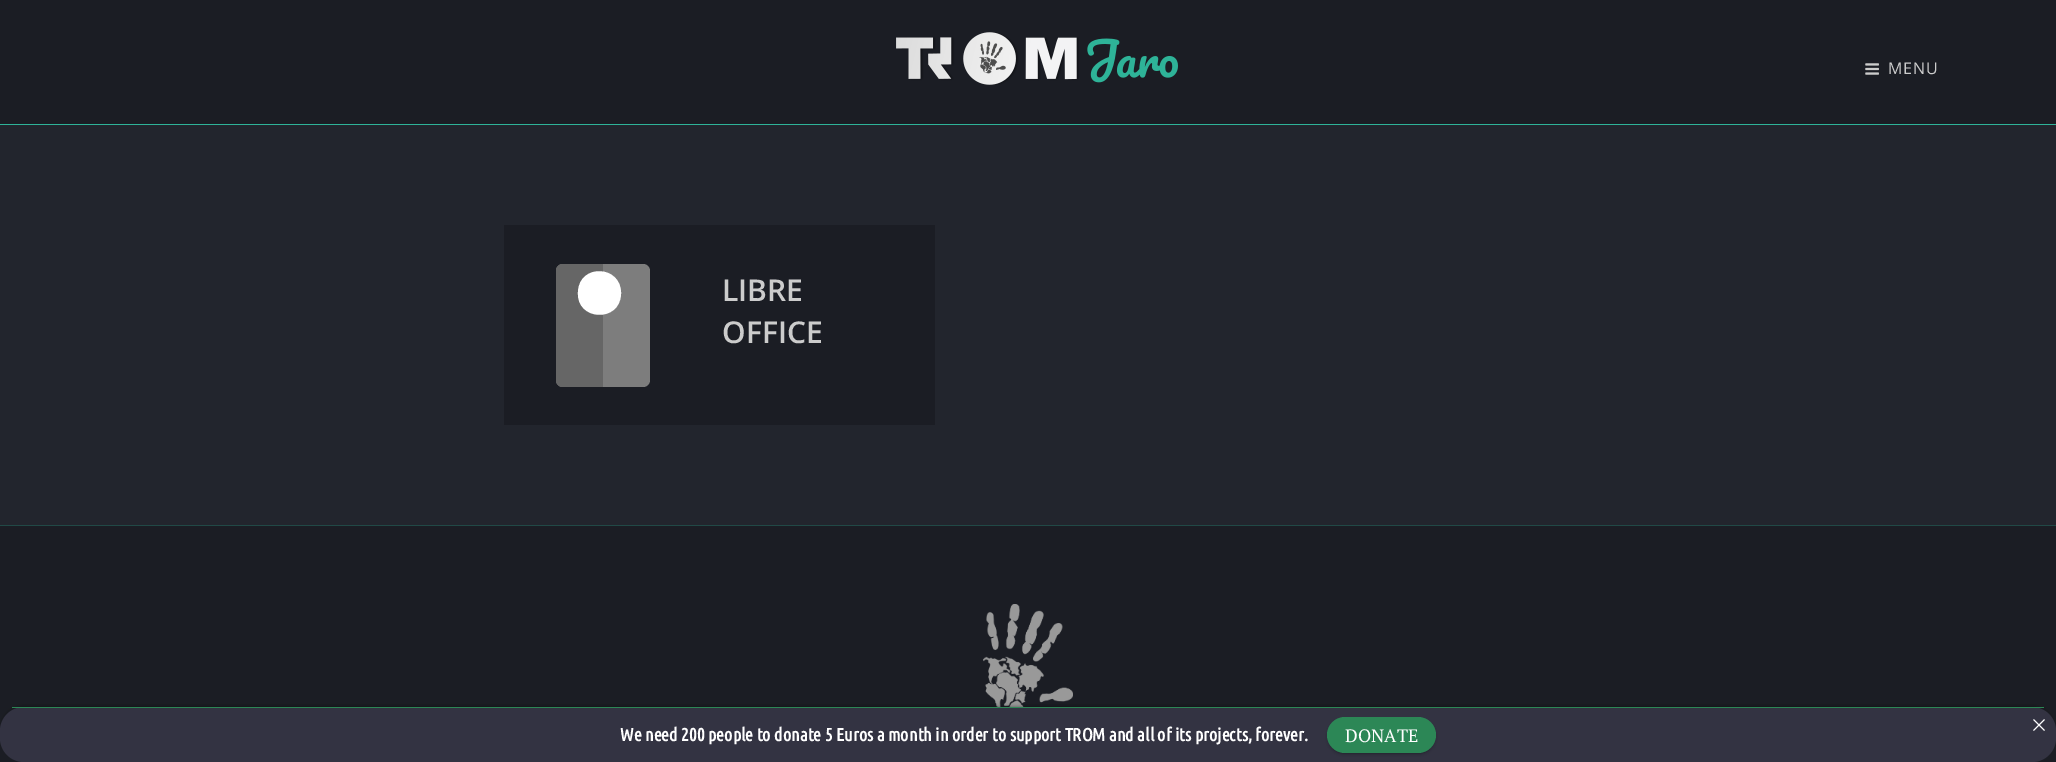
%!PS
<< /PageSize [2056 762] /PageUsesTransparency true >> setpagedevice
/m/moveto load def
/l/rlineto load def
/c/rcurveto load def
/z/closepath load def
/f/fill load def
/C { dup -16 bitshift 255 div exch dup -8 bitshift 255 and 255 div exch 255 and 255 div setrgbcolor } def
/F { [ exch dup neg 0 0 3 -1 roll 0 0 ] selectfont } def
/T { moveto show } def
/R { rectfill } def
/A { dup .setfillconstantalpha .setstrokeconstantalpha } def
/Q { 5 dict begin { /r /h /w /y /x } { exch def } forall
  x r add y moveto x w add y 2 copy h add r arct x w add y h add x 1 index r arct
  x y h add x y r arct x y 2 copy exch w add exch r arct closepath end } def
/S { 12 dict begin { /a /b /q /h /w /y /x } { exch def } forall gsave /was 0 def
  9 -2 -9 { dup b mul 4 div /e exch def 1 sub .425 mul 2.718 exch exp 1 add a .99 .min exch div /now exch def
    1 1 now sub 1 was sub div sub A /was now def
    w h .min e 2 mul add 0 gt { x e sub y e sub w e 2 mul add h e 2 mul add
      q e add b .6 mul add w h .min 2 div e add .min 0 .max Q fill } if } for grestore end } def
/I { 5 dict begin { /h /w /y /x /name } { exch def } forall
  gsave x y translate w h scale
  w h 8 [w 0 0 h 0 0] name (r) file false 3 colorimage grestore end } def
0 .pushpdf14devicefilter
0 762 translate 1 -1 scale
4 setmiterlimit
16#1B1D24 C
0 0 2056 762 R
16#2EB398 C
0 124 2056 1 R
(1.rgb) 896 32 282 53 I
(2.rgb) 1865 63 14 12 I
/OpenSans-Regular 16 F
16#CCCCCC C
1888 74 m 1 0 (MENU) ashow
16#22252D C
0 125 2056 400 R
16#1B1D24 C
504 225 431 200 R
16#7D7D7D C
556 264 94 123 7 Q f
16#666666 C
563 264 m 40 0 l 0 123 l -40 0 l -4 0 -7 -3 -7 -7 c 0 -109 l 0 -4 3 -7 7 -7 c z f
16#FFFFFF C
621 294 m -1 29 -45 27 -43 -2 c 1 -29 44 -27 43 2 c f
/OpenSans-SemiBold 30 F
16#CCCCCC C
(LIBRE) 722 301 T
(OFFICE) 722 343 T
16#214946 C
0 525 2056 1 R
(3.rgb) 983 604 90 103 I
16#000000 C
2 707 2052 51 22 2 .5 S
16#333342 C
0 707 2056 55 24 Q f
16#2C8756 C
12 707 2032 1 R
(4.rgb) 2033 719 12 12 I
/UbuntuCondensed-Bold 18 F
16#FFFFFF C
(We need 200 people to donate 5 Euros a month in order to support TROM and all of its projects, forever.) 620 741 T
16#000000 C
1329 721 105 32 16 2 .5 S
16#2C8756 C
1327 717 109 36 18 Q f
/PTSerif-Regular 18 F
16#FFFFFF C
(DONATE) 1345 742 T
.poppdf14devicefilter showpage
